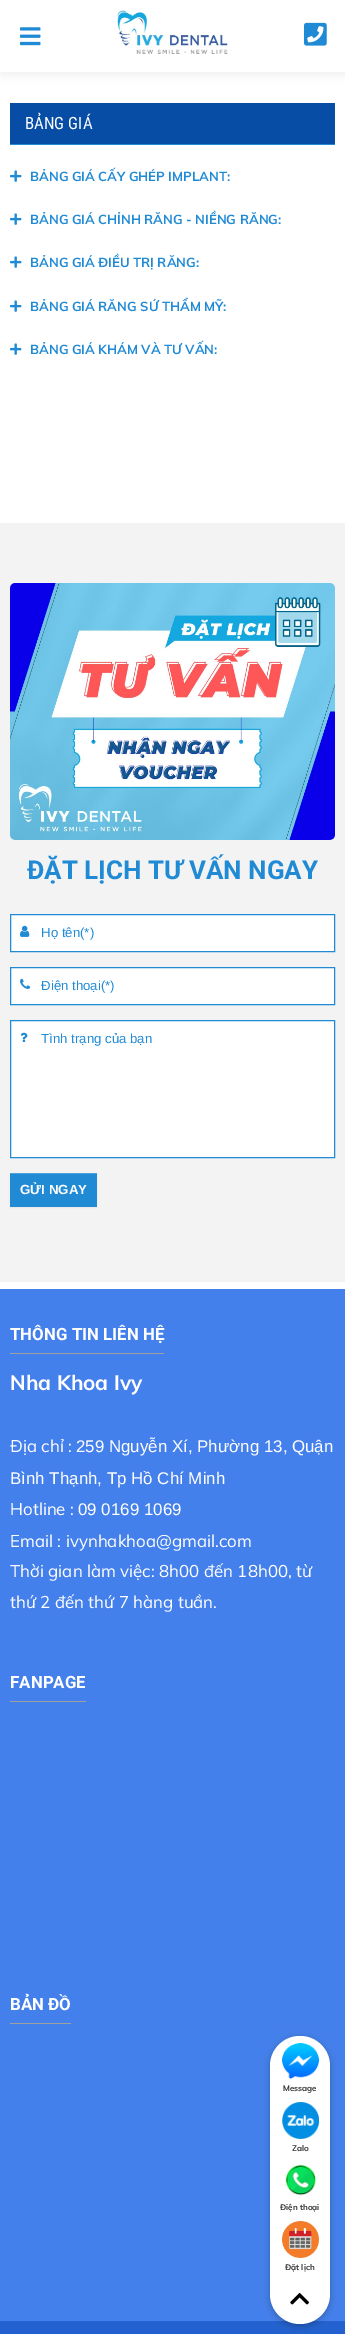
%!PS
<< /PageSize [345 2334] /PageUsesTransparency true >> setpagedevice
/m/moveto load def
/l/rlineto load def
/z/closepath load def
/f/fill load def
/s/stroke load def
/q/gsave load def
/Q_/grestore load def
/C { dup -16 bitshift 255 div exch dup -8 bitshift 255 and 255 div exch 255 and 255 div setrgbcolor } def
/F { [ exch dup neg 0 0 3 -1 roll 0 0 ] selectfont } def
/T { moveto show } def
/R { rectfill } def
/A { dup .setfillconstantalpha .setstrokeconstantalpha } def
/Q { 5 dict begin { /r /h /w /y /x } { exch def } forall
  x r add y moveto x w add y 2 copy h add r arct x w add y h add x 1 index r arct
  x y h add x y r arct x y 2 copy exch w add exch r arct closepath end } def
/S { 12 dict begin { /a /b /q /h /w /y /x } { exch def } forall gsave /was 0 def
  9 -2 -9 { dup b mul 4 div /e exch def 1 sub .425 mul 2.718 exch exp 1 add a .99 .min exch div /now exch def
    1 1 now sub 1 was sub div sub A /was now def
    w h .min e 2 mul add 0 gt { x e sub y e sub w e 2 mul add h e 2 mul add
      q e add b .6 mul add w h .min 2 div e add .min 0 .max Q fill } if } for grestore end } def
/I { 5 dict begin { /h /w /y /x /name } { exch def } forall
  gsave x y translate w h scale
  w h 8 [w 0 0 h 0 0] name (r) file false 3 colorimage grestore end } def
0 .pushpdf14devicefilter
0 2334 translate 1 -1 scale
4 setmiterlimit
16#FFFFFF C
0 0 345 2334 R
16#000000 C
1 1 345 72 0 5 .08 S
16#FFFFFF C
0 0 345 72 R
(1.rgb) 20 27 21 19 I
(2.rgb) 117 10 111 44 I
(3.rgb) 304 22 23 24 I
16#074CA5 C
10 103 325 41 R
16#208AD5 C
10 144 325 1 R
/RobotoCondensed-Regular 16.9 F
16#FFFFFF C
(BẢNG GIÁ) 25 129 T
(4.rgb) 10 170 12 12 I
/Muli-Bold 13 F
16#208AD5 C
(BẢNG GIÁ CẤY GHÉP IMPLANT:) 30 181 T
(4.rgb) 10 213 12 12 I
(BẢNG GIÁ CHỈNH RĂNG - NIỀNG RĂNG:) 30 224 T
(4.rgb) 10 256 12 12 I
(BẢNG GIÁ ĐIỀU TRỊ RĂNG:) 30 267 T
(4.rgb) 10 300 12 12 I
(BẢNG GIÁ RĂNG SỨ THẨM MỸ:) 30 311 T
(4.rgb) 10 343 12 12 I
(BẢNG GIÁ KHÁM VÀ TƯ VẤN:) 30 354 T
16#F3F3F3 C
0 523 345 759 R
(5.rgb) 10 583 325 257 I
/Roboto-Bold 26 F
16#208AD5 C
(ĐẶT LỊCH TƯ VẤN NGAY) 27 879 T
16#FFFFFF C
10.5 914.5 m 324 0 l 0 37 l -324 0 l z q f Q_
16#208AD5 C
s
(6.rgb) 20 925 10 12 I
/LiberationSans-Regular 13.25 F
(Họ tên\(*\)) 41 937 T
16#FFFFFF C
10.5 967.5 m 324 0 l 0 37 l -324 0 l z q f Q_
16#208AD5 C
s
(7.rgb) 20 978 11 11 I
(Điện thoại\(*\)) 41 990 T
16#FFFFFF C
10.5 1020.5 m 324 0 l 0 137 l -324 0 l z q f Q_
16#208AD5 C
s
(8.rgb) 20 1032 8 10 I
(Tình trạng của bạn) 41 1043 T
16#000000 C
10 1174 87 34 0 1 .05 S
16#208AD5 C
10 1174 87 33 R
16#4DA1DD C
10 1173 87 1 R
/LiberationSans-Bold 13.25 F
16#FFFFFF C
(GỬI NGAY) 20 1194 T
16#4480EC C
0 1289 345 1032 R
16#A0A0A0 C
10 1353 154 1 R
/Roboto-Bold 16.9 F
16#FFFFFF C
(THÔNG TIN LIÊN HỆ) 10 1340 T
/Muli-Bold 20.75 F
(Nha Khoa Ivy) 10 1390 T
/Muli-Regular 16.9 F
(Địa chỉ :) 10 1452 T
/LiberationSans-Regular 16.9 F
(259 Nguyễn Xí, Phường 13, Quận) 76 1452 T
(Bình Thạnh, Tp Hồ Chí Minh) 10 1484 T
/Muli-Regular 16.9 F
(Hotline :) 10 1515 T
/LiberationSans-Regular 16.9 F
(09 0169 1069) 78 1515 T
/Muli-Regular 16.9 F
(Email : ivynhakhoa@gmail.com) 10 1547 T
(Thời gian làm việc: 8h00 đến 18h00, từ) 10 1577 T
(thứ 2 đến thứ 7 hàng tuần.) 10 1608 T
16#A0A0A0 C
10 1701 76 1 R
/Roboto-Bold 16.9 F
16#FFFFFF C
(FANPAGE) 10 1688 T
16#A0A0A0 C
10 2023 61 1 R
16#FFFFFF C
(BẢN ĐỒ) 10 2010 T
16#2361D0 C
0 2321 345 13 R
16#000000 C
270 2038 60 288 30 5 .12 S
270 2038 60 288 30 2.5 .16 S
16#FFFFFF C
270 2036 60 288 30 Q f
(9.rgb) 282 2043 37 36 I
/Muli-Bold 8 F
16#333333 C
(Message) 283 2091 T
(10.rgb) 282 2102 37 37 I
(Zalo) 292 2151 T
(11.rgb) 285 2164 32 32 I
(Điện thoại) 280 2210 T
(12.rgb) 282 2221 37 37 I
(Đặt lịch) 285 2270 T
(13.rgb) 290 2293 19 12 I
.poppdf14devicefilter showpage
